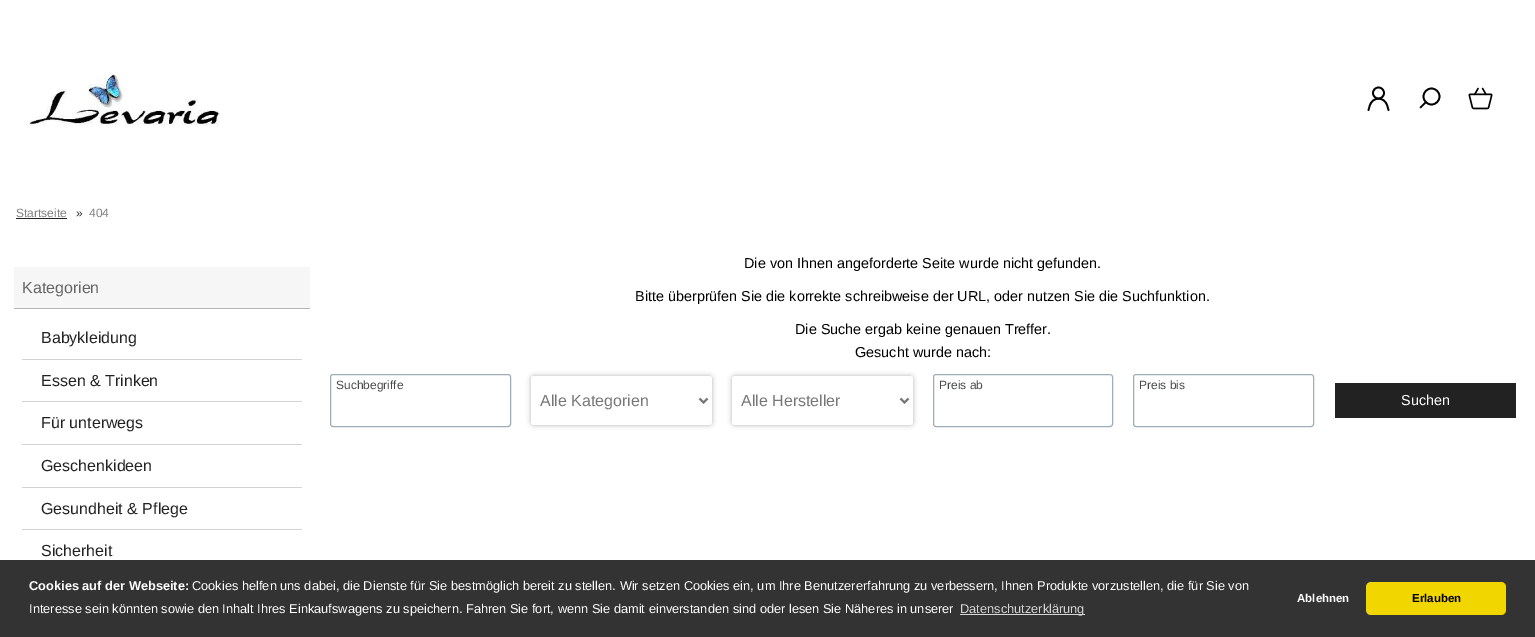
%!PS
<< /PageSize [1535 637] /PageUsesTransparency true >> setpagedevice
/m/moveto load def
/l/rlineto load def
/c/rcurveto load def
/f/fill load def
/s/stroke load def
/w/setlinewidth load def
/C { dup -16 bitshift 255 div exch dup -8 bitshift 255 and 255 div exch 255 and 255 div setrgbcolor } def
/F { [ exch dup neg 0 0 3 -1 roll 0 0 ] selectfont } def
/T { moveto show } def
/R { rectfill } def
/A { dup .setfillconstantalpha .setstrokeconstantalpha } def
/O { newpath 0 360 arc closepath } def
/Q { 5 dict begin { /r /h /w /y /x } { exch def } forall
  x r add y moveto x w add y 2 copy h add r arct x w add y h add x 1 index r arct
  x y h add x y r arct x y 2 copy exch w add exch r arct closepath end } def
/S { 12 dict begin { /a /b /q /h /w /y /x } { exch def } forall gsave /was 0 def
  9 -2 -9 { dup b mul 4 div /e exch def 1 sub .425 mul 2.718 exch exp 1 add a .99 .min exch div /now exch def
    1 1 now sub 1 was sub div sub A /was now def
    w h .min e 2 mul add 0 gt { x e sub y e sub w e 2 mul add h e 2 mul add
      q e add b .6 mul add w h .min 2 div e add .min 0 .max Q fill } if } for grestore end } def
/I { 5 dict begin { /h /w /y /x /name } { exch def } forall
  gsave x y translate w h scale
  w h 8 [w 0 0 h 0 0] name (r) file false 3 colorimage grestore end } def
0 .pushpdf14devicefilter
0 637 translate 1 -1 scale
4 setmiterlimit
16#FFFFFF C
0 0 1535 637 R
(1.rgb) 29 73 191 53 I
16#000000 C
1.7 w
1 setlinecap
1 setlinejoin
1368.5 110 m 1 -3.5 l 2.5 -10.5 15.5 -10.5 18 0 c 1 3.5 l s
0 setlinecap
0 setlinejoin
1378.5 93 5.5 O s
1431.5 96.5 8 O s
(2.rgb) 1468 87 25 23 I
1 setlinecap
2 setlinejoin
1426 102 m -5.5 5.5 l s
/LiberationSans-Regular 12 F
16#808080 C
(Startseite) 16 217 T
16#222222 C
16 218 51 1 R
16#333333 C
(») 76 217 T
16#808080 C
(404) 89 217 T
16#F6F6F6 C
14 267 296 41 R
16#B5B5B5 C
14 308 296 1 R
/LiberationSans-Regular 16 F
16#666666 C
(Kategorien) 22 293 T
16#D2D2D2 C
22 359 280 1 R
16#222222 C
(Babykleidung) 41 343 T
16#D2D2D2 C
22 401 280 1 R
16#222222 C
(Essen & Trinken) 41 386 T
16#D2D2D2 C
22 444 280 1 R
16#222222 C
(Für unterwegs) 41 428 T
16#D2D2D2 C
22 487 280 1 R
16#222222 C
(Geschenkideen) 41 471 T
16#D2D2D2 C
22 529 280 1 R
16#222222 C
(Gesundheit & Pflege) 41 514 T
(Sicherheit) 41 556 T
/LiberationSans-Regular 14.4 F
16#000000 C
(Die von Ihnen angeforderte Seite wurde nicht gefunden.) 744 268 T
(Bitte überprüfen Sie die korrekte schreibweise der URL, oder nutzen Sie die Suchfunktion.) 635 301 T
(Die Suche ergab keine genauen Treffer.) 795 334 T
(Gesucht wurde nach:) 855 357 T
16#9EADB7 C
1 w
0 setlinecap
0 setlinejoin
330.5 374.5 180 52 2.5 Q s
/LiberationSans-Regular 12 F
16#484A4A C
(Suchbegriffe) 336 389 T
16#9EADB7 C
933.5 374.5 179 52 2.5 Q s
16#484A4A C
(Preis ab) 939 389 T
16#9EADB7 C
1133.5 374.5 180 52 2.5 Q s
16#484A4A C
(Preis bis) 1139 389 T
16#000000 C
531 376 181 49 3 2.5 .3 S
16#FFFFFF C
531 376 181 49 3 Q f
16#777777 C
2 w
699.5 398.5 m 4 4 l 4 -4 l s
/LiberationSans-Regular 16 F
(Alle Kategorien) 540 406 T
16#000000 C
732 376 181 49 3 2.5 .3 S
16#FFFFFF C
732 376 181 49 3 Q f
16#777777 C
900.5 398.5 m 4 4 l 4 -4 l s
(Alle Hersteller) 741 406 T
16#222222 C
1335 383 181 35 R
/LiberationSans-Regular 14.4 F
16#FFFFFF C
(Suchen) 1401 405 T
16#333333 C
0 560 1535 77 R
/LiberationSans-Bold 12.8 F
16#FFFFFF C
(Cookies auf der Webseite:) 29 590 T
/LiberationSans-Regular 12.8 F
(Cookies helfen uns dabei, die Dienste für Sie bestmöglich bereit zu stellen. Wir setzen Cookies ein, um Ihre Benutzererfahrung zu verbessern, Ihnen Produkte vorzustellen, die für Sie von) 192 590 T
(Interesse sein könnten sowie den Inhalt Ihres Einkaufswagens zu speichern. Fahren Sie fort, wenn Sie damit einverstanden sind oder lesen Sie Näheres in unserer) 29 613 T
16#D6D6D6 C
960 614 125 1 R
(Datenschutzerklärung) 960 613 T
/LiberationSans-Bold 11.5 F
16#FFFFFF C
(Ablehnen) 1297 602 T
16#F1D600 C
1366 582 140 33 5 Q f
16#000000 C
(Erlauben) 1412 602 T
.poppdf14devicefilter showpage
